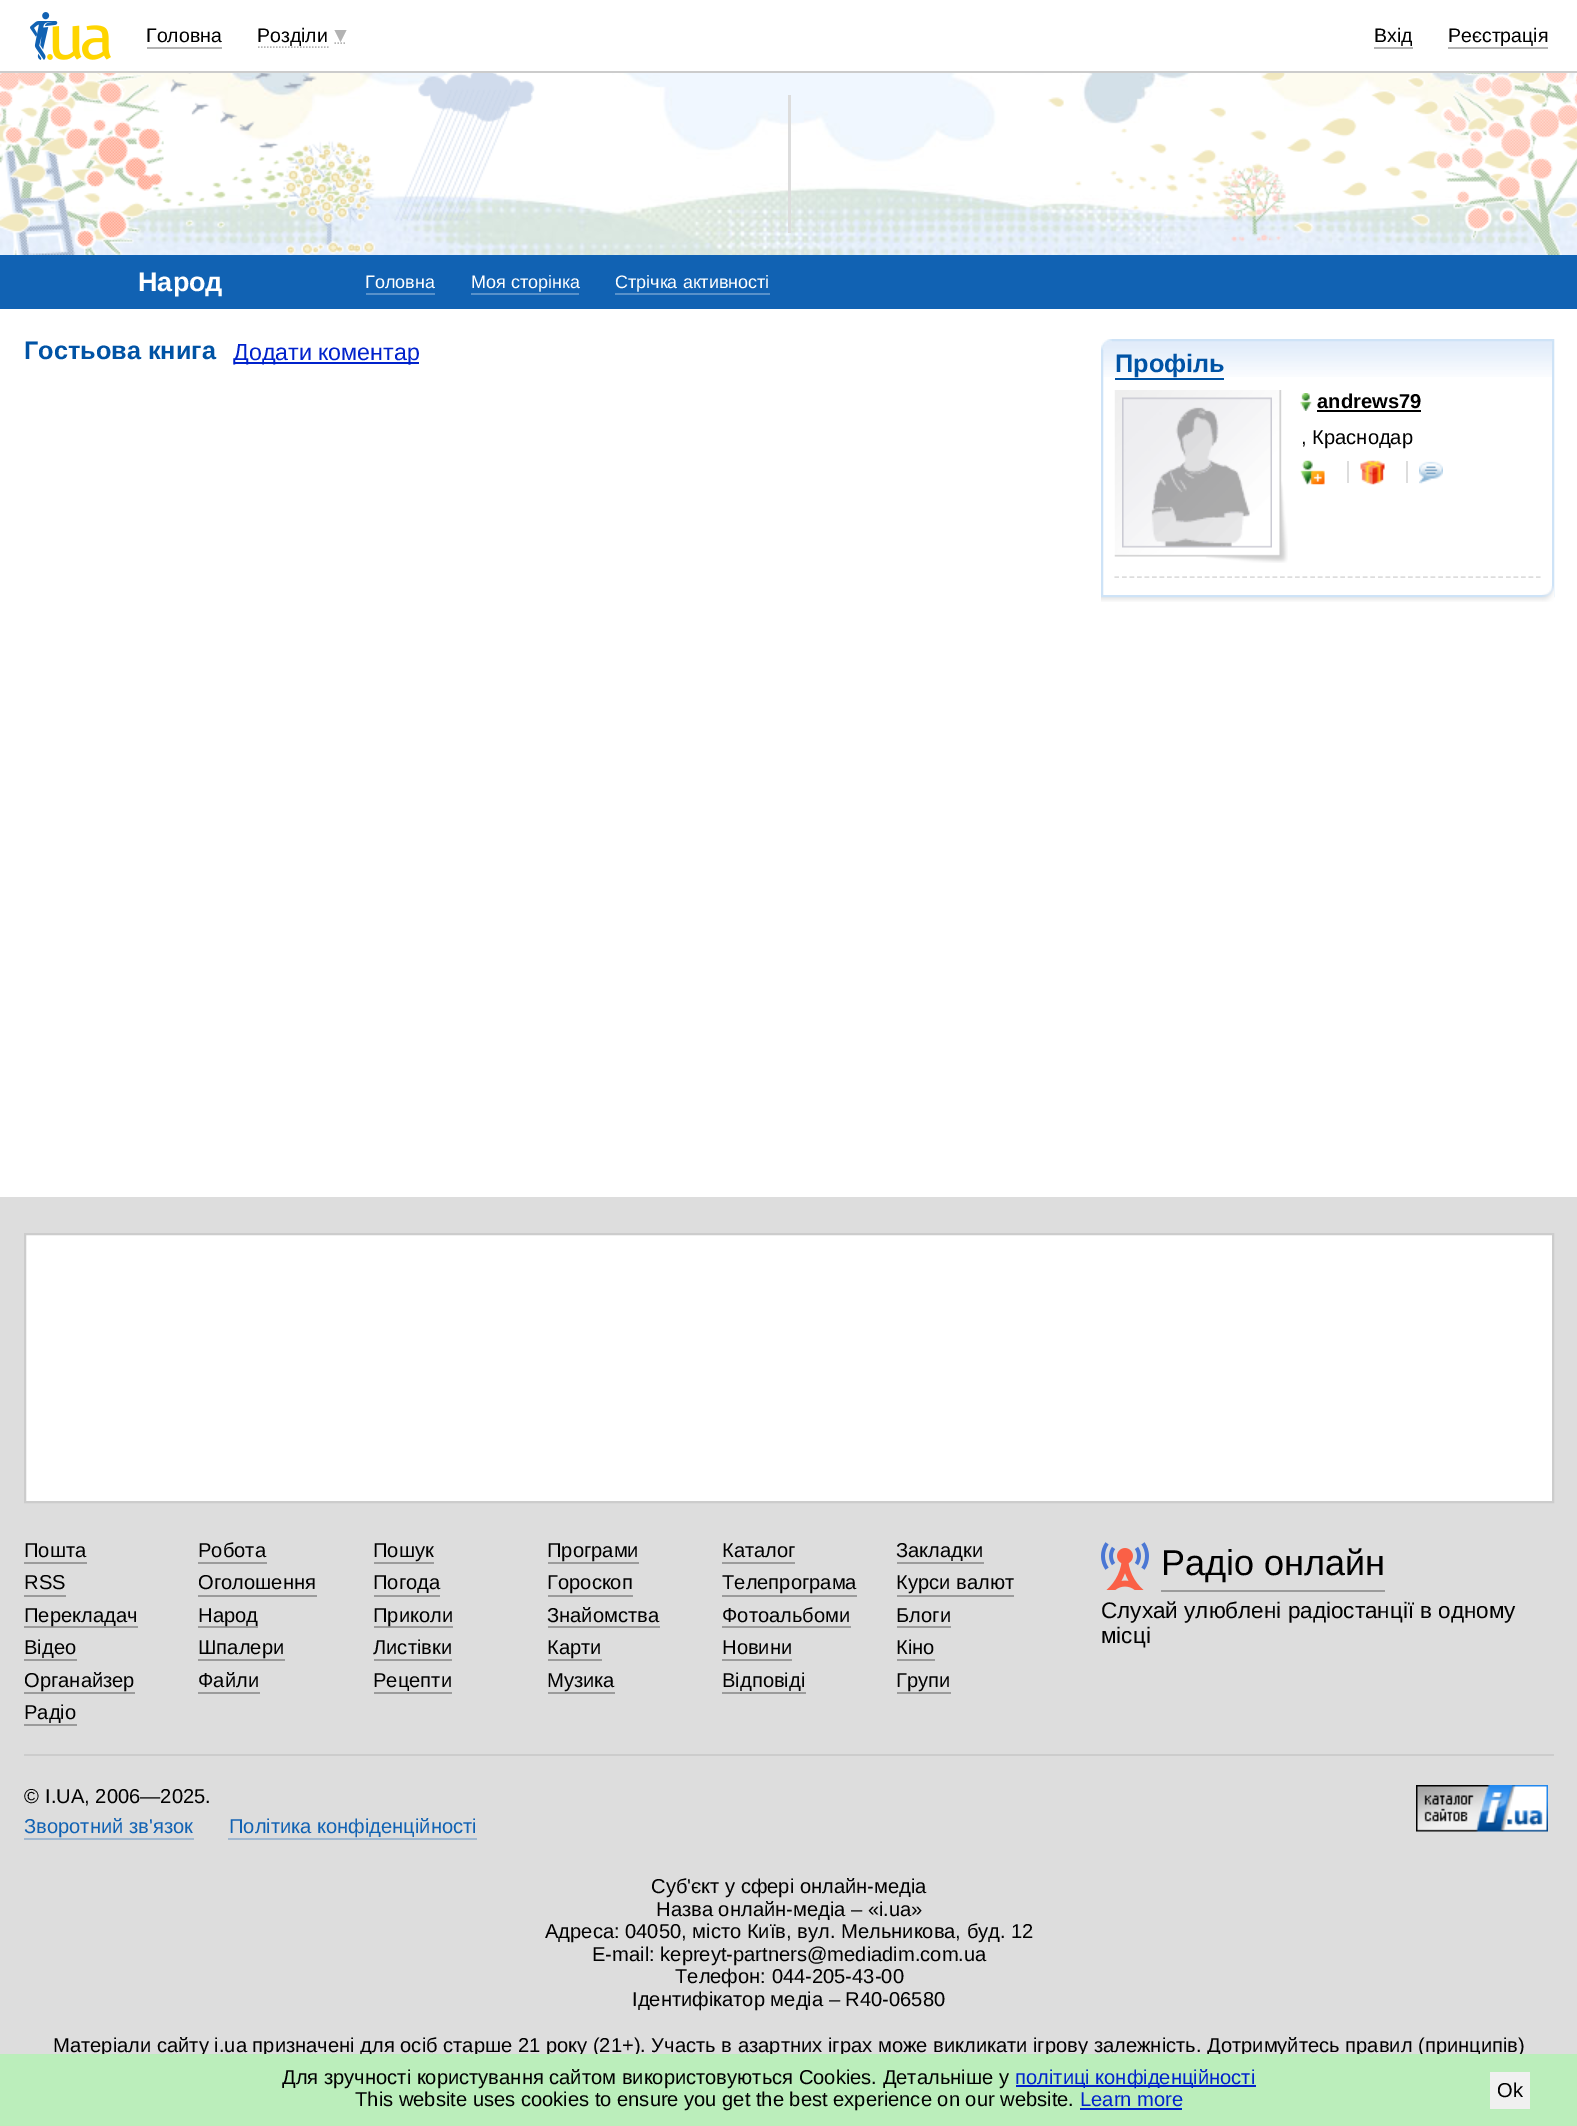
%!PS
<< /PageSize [1577 2126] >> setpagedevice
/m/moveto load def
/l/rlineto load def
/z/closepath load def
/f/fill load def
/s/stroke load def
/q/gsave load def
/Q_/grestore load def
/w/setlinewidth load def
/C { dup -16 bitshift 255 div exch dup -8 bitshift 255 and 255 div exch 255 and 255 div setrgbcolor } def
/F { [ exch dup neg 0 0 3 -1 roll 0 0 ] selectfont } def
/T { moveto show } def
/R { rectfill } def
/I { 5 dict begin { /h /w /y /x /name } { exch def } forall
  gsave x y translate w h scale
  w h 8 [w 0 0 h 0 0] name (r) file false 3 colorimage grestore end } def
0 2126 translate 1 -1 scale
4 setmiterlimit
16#FFFFFF C
0 0 1577 2126 R
16#CCCCCC C
0 71 1577 2 R
(1.rgb) 30 12 81 48 I
/LiberationSans-Regular 19.5 F
16#000000 C
(Головна) 146 42 T
16#B3B3B3 C
147 47 75 2 R
1.5 w
[1.5 1.5] 0 setdash
258 47 m 70.5 0 l s
334.5 43 m 12 0 l s
16#000000 C
(Розділи) 257 42 T
16#B3B3B3 C
334.5 30 m 12 0 l -6 12 l z f
16#000000 C
(Вхід) 1374 42 T
16#B3B3B3 C
1374 47 39 2 R
16#000000 C
(Реєстрація) 1448 42 T
16#B3B3B3 C
1448 47 100 2 R
(2.rgb) 0 73 1577 182 I
16#DDDDDD C
788 95 3 138 R
16#1162B3 C
0 255 1577 54 R
/LiberationSans-Bold 27 F
16#FFFFFF C
(Народ) 138 291 T
/LiberationSans-Regular 18 F
(Головна) 365 288 T
16#5891CA C
366 293 69 2 R
16#FFFFFF C
(Моя сторінка) 471 288 T
16#5891CA C
471 293 108 2 R
16#FFFFFF C
(Стрічка активності) 615 288 T
16#5891CA C
615 293 155 2 R
/LiberationSans-Bold 25.25 F
16#0053A5 C
(Гостьова книга) 24 359 T
16#0022CC C
234 362 185 2 R
/LiberationSans-Regular 23.25 F
(Додати коментар) 233 360 T
(3.rgb) 1101 597 441 5 I
(5.rgb) 1103 341 449 36 I
16#CEE3F7 C
2 w
[] 0 setdash
1102 340 451 256 rectstroke
(4.rgb) 1101 339 11 11 I
/LiberationSans-Bold 25.25 F
16#0053A5 C
(Профіль) 1115 372 T
1115 378 109 2 R
(6.rgb) 1114 390 174 173 I
(7.rgb) 1122 397 150 151 I
(8.rgb) 1300 393 12 18 I
/LiberationSans-Bold 20.15 F
16#000000 C
(andrews79) 1317 408 T
1317 410 104 2 R
/LiberationSans-Regular 20.15 F
(, Краснодар) 1301 444 T
(9.rgb) 1300 460 25 25 I
16#DDDDDD C
1347 461 2 22 R
(10.rgb) 1360 460 25 25 I
1406 461 2 22 R
(11.rgb) 1419 461 24 23 I
1.5 w
[4.5 3.03] 0 setdash
1114.5 577 m 426 0 l s
(12.rgb) 1542 586 12 16 I
0 1197 1577 857 R
16#FFFFFF C
25 1234 m 1528 0 l 0 268 l -1528 0 l z q f Q_
16#CCCCCC C
2 w
[] 0 setdash
s
16#000000 C
(Пошта) 24 1557 T
16#9B9B9B C
24 1562 63 2 R
16#000000 C
(Робота) 198 1557 T
16#9B9B9B C
198 1562 69 2 R
16#000000 C
(Пошук) 373 1557 T
16#9B9B9B C
374 1562 60 2 R
16#000000 C
(Програми) 547 1557 T
16#9B9B9B C
548 1562 91 2 R
16#000000 C
(Каталог) 722 1557 T
16#9B9B9B C
722 1562 73 2 R
16#000000 C
(Закладки) 896 1557 T
16#9B9B9B C
897 1562 87 2 R
16#000000 C
(RSS) 24 1589 T
16#9B9B9B C
24 1595 42 2 R
16#000000 C
(Оголошення) 198 1589 T
16#9B9B9B C
198 1595 119 2 R
16#000000 C
(Погода) 373 1589 T
16#9B9B9B C
374 1595 66 2 R
16#000000 C
(Гороскоп) 547 1589 T
16#9B9B9B C
548 1595 85 2 R
16#000000 C
(Телепрограма) 722 1589 T
16#9B9B9B C
722 1595 135 2 R
16#000000 C
(Курси валют) 896 1589 T
16#9B9B9B C
897 1595 117 2 R
24 1626 114 2 R
16#000000 C
(Перекладач) 24 1622 T
16#9B9B9B C
198 1626 60 2 R
16#000000 C
(Народ) 198 1622 T
16#9B9B9B C
374 1626 79 2 R
16#000000 C
(Приколи) 373 1622 T
(Знайомства) 547 1622 T
16#9B9B9B C
548 1626 112 2 R
16#000000 C
(Фотоальбоми) 722 1622 T
16#9B9B9B C
722 1626 129 2 R
16#000000 C
(Блоги) 896 1622 T
16#9B9B9B C
897 1626 54 2 R
16#000000 C
(Відео) 24 1654 T
16#9B9B9B C
24 1659 53 2 R
16#000000 C
(Шпалери) 198 1654 T
16#9B9B9B C
198 1659 87 2 R
16#000000 C
(Листівки) 373 1654 T
16#9B9B9B C
374 1659 78 2 R
16#000000 C
(Карти) 547 1654 T
16#9B9B9B C
548 1659 54 2 R
16#000000 C
(Новини) 722 1654 T
16#9B9B9B C
722 1659 70 2 R
16#000000 C
(Кіно) 896 1654 T
16#9B9B9B C
897 1659 38 2 R
16#000000 C
(Органайзер) 24 1687 T
16#9B9B9B C
24 1692 111 2 R
16#000000 C
(Файли) 198 1687 T
16#9B9B9B C
198 1692 62 2 R
16#000000 C
(Рецепти) 373 1687 T
16#9B9B9B C
374 1692 78 2 R
16#000000 C
(Музика) 547 1687 T
16#9B9B9B C
548 1692 67 2 R
16#000000 C
(Відповіді) 722 1687 T
16#9B9B9B C
722 1692 84 2 R
16#000000 C
(Групи) 896 1687 T
16#9B9B9B C
897 1692 54 2 R
16#000000 C
(Радіо) 24 1719 T
16#9B9B9B C
24 1724 53 2 R
1161 1590 224 2 R
(13.rgb) 1101 1542 48 48 I
/LiberationSans-Regular 36 F
16#000000 C
(Радіо онлайн) 1161 1575 T
/LiberationSans-Regular 22.5 F
(Слухай улюблені радіостанції в одному) 1101 1618 T
(місці) 1101 1643 T
16#CCCCCC C
24 1754 1530 2 R
/LiberationSans-Regular 20.15 F
16#000000 C
(©) 24 1803 T
(I.UA, 2006—2025.) 45 1803 T
(14.rgb) 1416 1785 132 47 I
16#1162B3 C
(Зворотний зв'язок) 24 1833 T
16#A0B8D0 C
24 1838 170 2 R
16#1162B3 C
(Політика конфіденційності) 229 1833 T
16#A0B8D0 C
228 1838 249 2 R
16#000000 C
(Суб'єкт у сфері онлайн-медіа) 651 1893 T
(Назва онлайн-медіа – «i.ua») 656 1916 T
(Адреса: 04050, місто Київ, вул. Мельникова, буд. 12) 545 1938 T
(E-mail: kepreyt-partners@mediadim.com.ua) 592 1961 T
(Телефон: 044-205-43-00) 675 1983 T
(Ідентифікатор медіа – R40-06580) 632 2006 T
(Матеріали сайту i.ua призначені для осіб старше 21 року \(21+\). Участь в азартних іграх може викликати ігрову залежність. Дотримуйтесь правил \(принципів\)) 53 2052 T
16#BBEEBB C
0 2054 1577 72 R
16#000000 C
(Для зручності користування сайтом використовуються Cookies. Детальніше у) 282 2084 T
16#0022CC C
1016 2085 240 2 R
(політиці конфіденційності) 1015 2084 T
16#F0F0F0 C
1490 2072 40 37 R
16#000000 C
(Ok) 1497 2097 T
(This website uses cookies to ensure you get the best experience on our website.) 355 2106 T
16#0022CC C
(Learn more) 1080 2106 T
1080 2108 102 2 R
showpage
